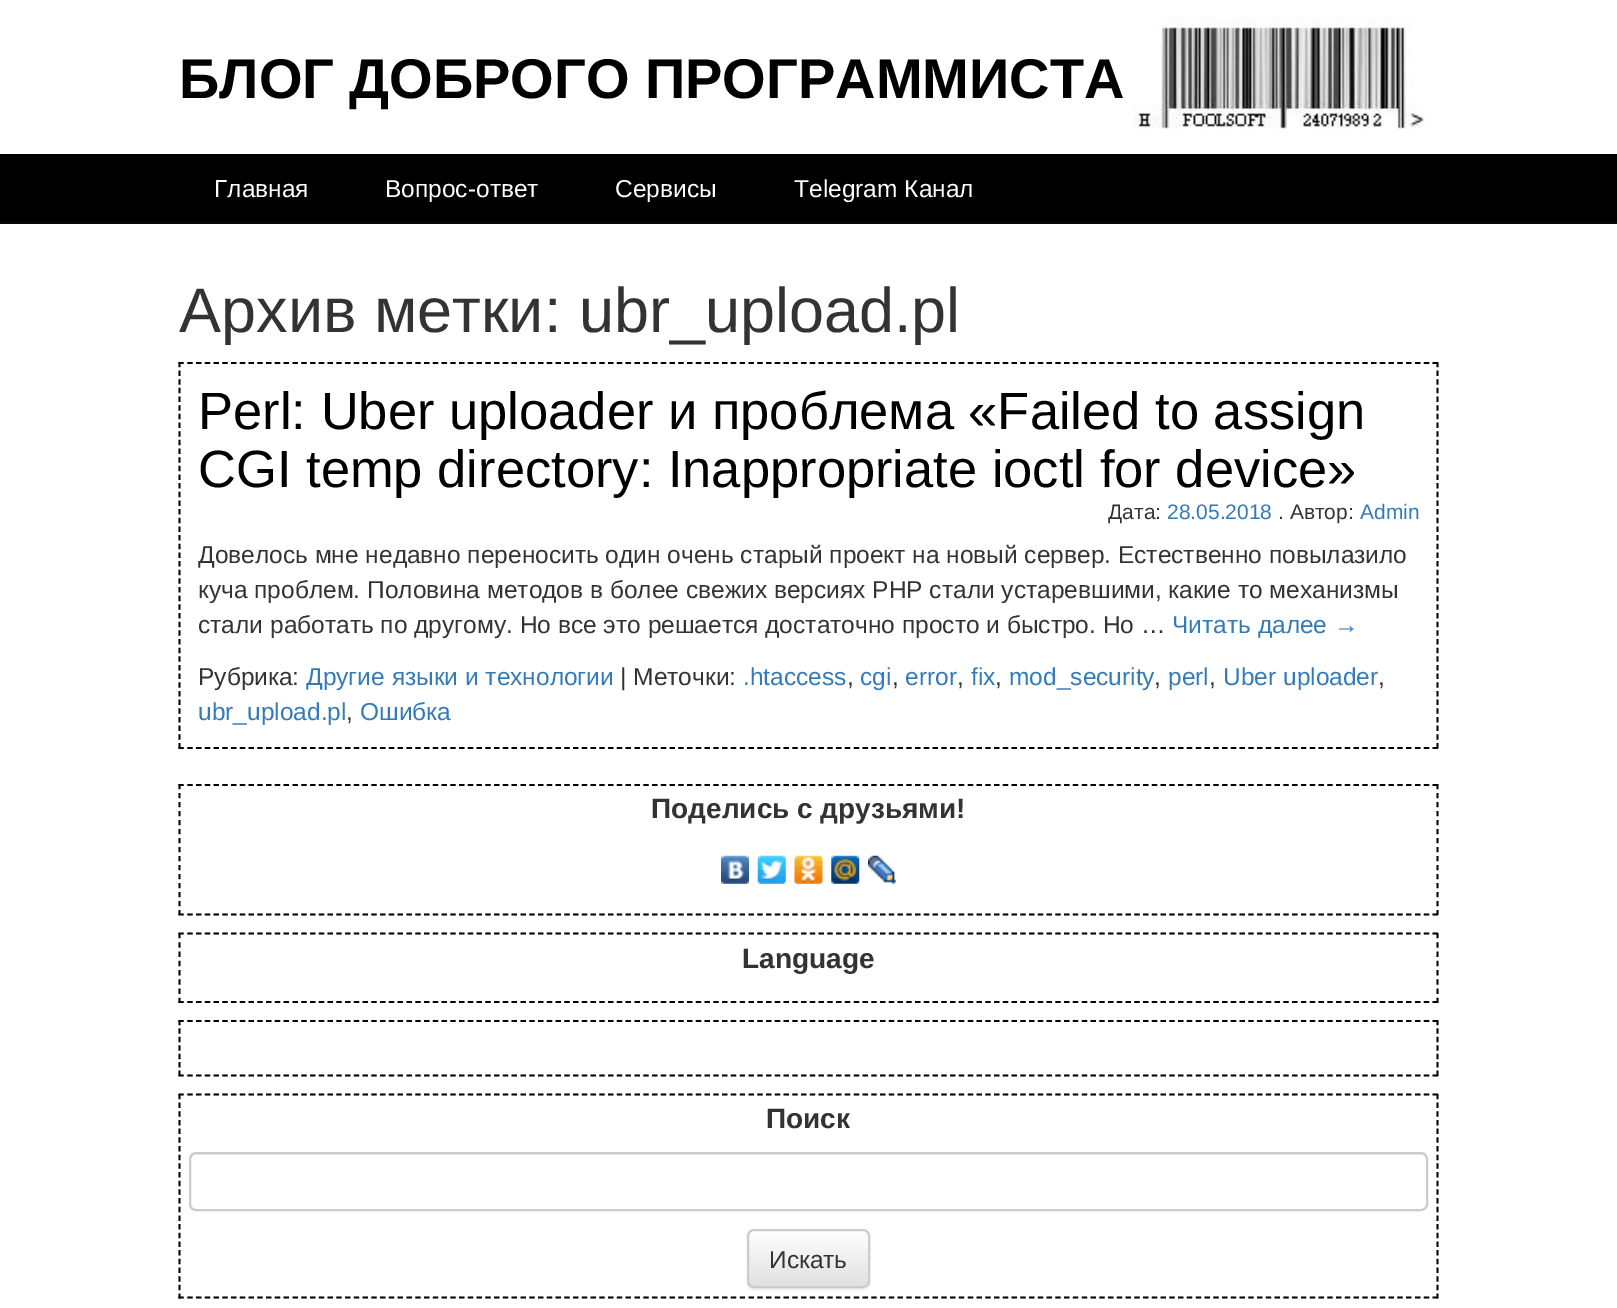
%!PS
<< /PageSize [1617 1308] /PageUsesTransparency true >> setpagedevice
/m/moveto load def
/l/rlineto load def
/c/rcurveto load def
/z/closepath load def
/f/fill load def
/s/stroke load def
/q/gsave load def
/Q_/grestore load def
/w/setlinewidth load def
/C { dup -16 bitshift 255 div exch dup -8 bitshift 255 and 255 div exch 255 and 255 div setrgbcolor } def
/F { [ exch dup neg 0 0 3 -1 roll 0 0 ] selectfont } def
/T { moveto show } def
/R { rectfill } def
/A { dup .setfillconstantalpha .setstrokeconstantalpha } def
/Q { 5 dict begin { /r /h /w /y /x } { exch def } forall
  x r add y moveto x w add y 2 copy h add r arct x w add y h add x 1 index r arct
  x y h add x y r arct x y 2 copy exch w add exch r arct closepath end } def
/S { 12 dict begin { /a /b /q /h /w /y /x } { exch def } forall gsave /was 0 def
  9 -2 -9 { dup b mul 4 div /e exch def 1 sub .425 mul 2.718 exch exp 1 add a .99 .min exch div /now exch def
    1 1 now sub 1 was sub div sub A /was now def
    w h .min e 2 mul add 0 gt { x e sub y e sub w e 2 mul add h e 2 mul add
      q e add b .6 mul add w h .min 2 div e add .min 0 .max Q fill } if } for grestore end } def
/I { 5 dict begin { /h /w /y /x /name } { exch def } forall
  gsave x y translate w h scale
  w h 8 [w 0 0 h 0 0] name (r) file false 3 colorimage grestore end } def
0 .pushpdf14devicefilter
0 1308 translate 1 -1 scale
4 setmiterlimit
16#FFFFFF C
0 0 1617 1308 R
/LiberationSans-Bold 56 F
16#000000 C
(БЛОГ ДОБРОГО ПРОГРАММИСТА) 179 98 T
(1.rgb) 1132 17 293 112 I
0 154 1617 68 R
16#080808 C
0 222 1617 2 R
/LiberationSans-Regular 24.5 F
16#FFFFFF C
(Главная) 214 197 T
(Вопрос-ответ) 385 197 T
(Сервисы) 615 197 T
(Telegram Канал) 794 197 T
/LiberationSans-Regular 63 F
16#333333 C
(Архив метки: ubr_upload.pl) 179 332 T
16#000000 C
1.8 w
[5.25 3.52] 0 setdash
178.5 363 m 1260 0 l s
[5.25 3.41] 0 setdash
1437.5 362 m 0 387 l s
[5.25 3.52] 0 setdash
178.5 748 m 1260 0 l s
[5.25 3.41] 0 setdash
179.5 362 m 0 387 l s
/LiberationSans-Regular 52.5 F
(Perl: Uber uploader и проблема «Failed to assign) 198 429 T
(CGI temp directory: Inappropriate ioctl for device») 198 487 T
/LiberationSans-Regular 21 F
16#333333 C
(Дата:) 1108 519 T
16#337AB7 C
(28.05.2018) 1167 519 T
16#333333 C
(. Автор:) 1278 519 T
16#337AB7 C
(Admin) 1360 519 T
/LiberationSans-Regular 24.5 F
16#333333 C
(Довелось мне недавно переносить один очень старый проект на новый сервер. Естественно повылазило) 198 563 T
(куча проблем. Половина методов в более свежих версиях PHP стали устаревшими, какие то механизмы) 198 598 T
(стали работать по другому. Но все это решается достаточно просто и быстро. Но …) 198 633 T
16#337AB7 C
(Читать далее →) 1172 633 T
16#333333 C
(Рубрика:) 198 685 T
16#337AB7 C
(Другие языки и технологии) 306 685 T
16#333333 C
(| Меточки:) 620 685 T
16#337AB7 C
(.htaccess) 743 685 T
16#333333 C
(,) 847 685 T
16#337AB7 C
(cgi) 860 685 T
16#333333 C
(,) 892 685 T
16#337AB7 C
(error) 905 685 T
16#333333 C
(,) 957 685 T
16#337AB7 C
(fix) 971 685 T
16#333333 C
(,) 995 685 T
16#337AB7 C
(mod_security) 1009 685 T
16#333333 C
(,) 1154 685 T
16#337AB7 C
(perl) 1168 685 T
16#333333 C
(,) 1209 685 T
16#337AB7 C
(Uber uploader) 1223 685 T
16#333333 C
(,) 1378 685 T
16#337AB7 C
(ubr_upload.pl) 198 720 T
16#333333 C
(,) 346 720 T
16#337AB7 C
(Ошибка) 360 720 T
16#000000 C
[5.25 3.52] 0 setdash
178.5 785 m 1260 0 l s
[5.25 3.75] 0 setdash
1437.5 784 m 0 131 l s
[5.25 3.52] 0 setdash
178.5 914.5 m 1260 0 l s
[5.25 3.75] 0 setdash
179.5 784 m 0 131 l s
/LiberationSans-Bold 28 F
16#333333 C
(Поделись с друзьями!) 651 818 T
(2.rgb) 721 855 28 29 I
(3.rgb) 757 855 29 29 I
(4.rgb) 794 855 29 29 I
(5.rgb) 831 855 29 29 I
(6.rgb) 868 855 28 29 I
16#000000 C
[5.25 3.52] 0 setdash
178.5 933.5 m 1260 0 l s
[5.25 4.01] 0 setdash
1437.5 933 m 0 70 l s
[5.25 3.52] 0 setdash
178.5 1002 m 1260 0 l s
[5.25 4.01] 0 setdash
179.5 933 m 0 70 l s
16#333333 C
(Language) 742 968 T
16#000000 C
[5.25 3.52] 0 setdash
178.5 1021 m 1260 0 l s
[5.25 3.2] 0 setdash
1437.5 1020 m 0 56 l s
[5.25 3.52] 0 setdash
178.5 1075.5 m 1260 0 l s
[5.25 3.2] 0 setdash
179.5 1020 m 0 56 l s
[5.25 3.52] 0 setdash
178.5 1094.5 m 1260 0 l s
[5.25 3.43] 0 setdash
1437.5 1094 m 0 204.5 l s
[5.25 3.52] 0 setdash
178.5 1297.5 m 1260 0 l s
[5.25 3.43] 0 setdash
179.5 1094 m 0 204.5 l s
16#333333 C
(Поиск) 766 1128 T
16#ECECEC C
196 1155 m 1225 0 l 3 0 5 2 5 5 c 0 -2 l 0 -3 -2 -5 -5 -5 c -1225 0 l -3 0 -5 2 -5 5 c 0 2 l 0 -3 2 -5 5 -5 c z f
16#CCCCCC C
2 w
[] 0 setdash
190 1153 1237 57 6 Q s
16#000000 C
747 1230 123 60 7 1 .07 S
q
747 1229 123 59 7 Q clip newpath
q 747 1230 m 123 0 l 0 56 l -123 0 l z clip newpath
<< /ShadingType 2 /ColorSpace /DeviceRGB /Coords [809 1230 809 1286] /Extend [true true] /Function << /FunctionType 2 /Domain [0 1] /C0 [1 1 1] /C1 [.878 .878 .878] /N 1 >> >> shfill Q_
Q_
16#CCCCCC C
748 1230 121 57 6 Q s
/LiberationSans-Regular 24.5 F
16#333333 C
(Искать) 769 1268 T
.poppdf14devicefilter showpage
